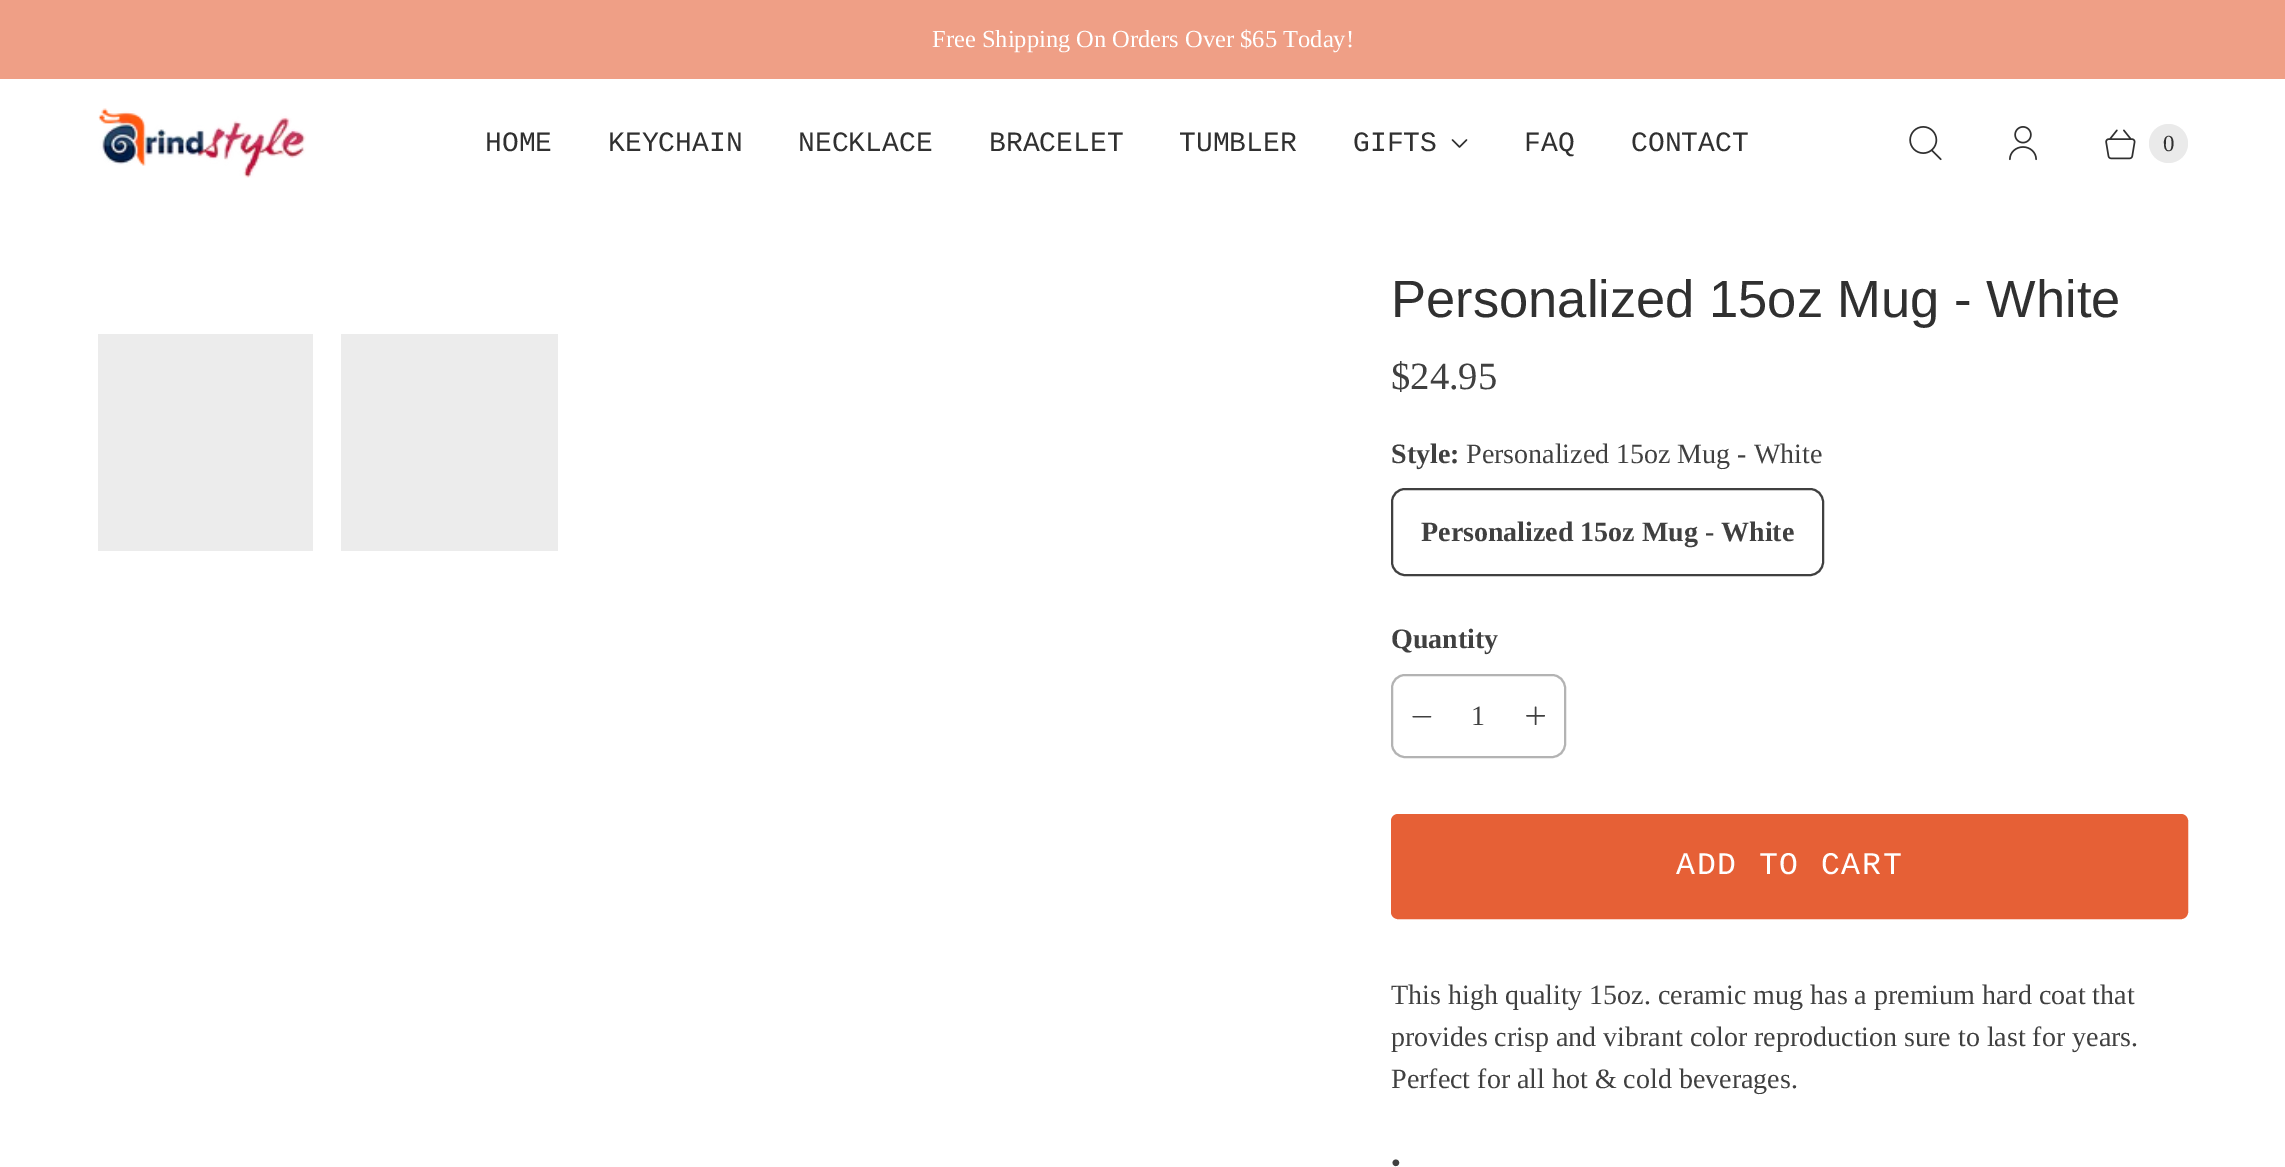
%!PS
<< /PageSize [2285 1167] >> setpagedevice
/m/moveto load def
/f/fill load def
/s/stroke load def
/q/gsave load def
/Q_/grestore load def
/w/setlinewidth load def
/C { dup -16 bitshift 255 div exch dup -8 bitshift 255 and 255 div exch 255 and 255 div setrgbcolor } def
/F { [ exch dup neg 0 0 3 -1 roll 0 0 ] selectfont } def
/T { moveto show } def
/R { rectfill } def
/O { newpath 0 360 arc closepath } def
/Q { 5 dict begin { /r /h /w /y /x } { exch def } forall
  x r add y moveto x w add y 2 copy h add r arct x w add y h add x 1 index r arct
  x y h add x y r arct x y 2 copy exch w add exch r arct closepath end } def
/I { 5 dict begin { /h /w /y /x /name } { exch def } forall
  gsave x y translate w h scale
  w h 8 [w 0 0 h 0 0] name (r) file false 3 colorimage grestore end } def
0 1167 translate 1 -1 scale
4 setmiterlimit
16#FFFFFF C
0 0 2285 1167 R
16#EF9F86 C
0 0 2285 79 R
/LiberationSerif-Regular 24.5 F
16#FFFFFF C
(Free Shipping On Orders Over $65 Today!) 932 47 T
(1.rgb) 98 108 208 70 I
/LiberationMono-Regular 28 F
16#303030 C
(HOME) 485 151 T
(KEYCHAIN) 608 151 T
(NECKLACE) 798 151 T
(BRACELET) 989 151 T
(TUMBLER) 1179 151 T
(GIFTS) 1353 151 T
(2.rgb) 1451 139 17 9 I
(FAQ) 1524 151 T
(CONTACT) 1631 151 T
(3.rgb) 1909 126 33 35 I
(4.rgb) 2009 126 28 35 I
(5.rgb) 2105 129 31 31 I
16#EAEAEA C
2168.5 143.5 19.5 O f
/LiberationSerif-Regular 23 F
16#303030 C
(0) 2163 151 T
16#ECECEC C
98 334 215 217 R
341 334 217 217 R
/LiberationSans-Regular 52.5 F
16#303030 C
(Personalized 15oz Mug - White) 1391 317 T
/LiberationSerif-Regular 38.5 F
16#404040 C
($24.95) 1391 389 T
/LiberationSerif-Bold 28 F
(Style:) 1391 463 T
/LiberationSerif-Regular 28 F
(Personalized 15oz Mug - White) 1466 463 T
2 w
1392 489 431 86 13 Q s
/LiberationSerif-Bold 28 F
(Personalized 15oz Mug - White) 1421 541 T
(Quantity) 1391 648 T
16#B3B3B3 C
1392 675 173 82 13 Q s
(6.rgb) 1412 716 20 2 I
/LiberationSerif-Regular 28 F
16#404040 C
(1) 1471 725 T
(7.rgb) 1526 706 19 19 I
16#E66036 C
1392 815 795 103 6 Q q f Q_
s
/LiberationMono-Regular 31.5 F
16#FFFFFF C
1676 874 m 1.75 0 (ADD TO CART) ashow
/LiberationSerif-Regular 28 F
16#404040 C
(This high quality 15oz. ceramic mug has a premium hard coat that) 1391 1004 T
(provides crisp and vibrant color reproduction sure to last for years.) 1391 1046 T
(Perfect for all hot & cold beverages.) 1391 1088 T
(•) 1391 1172 T
showpage
